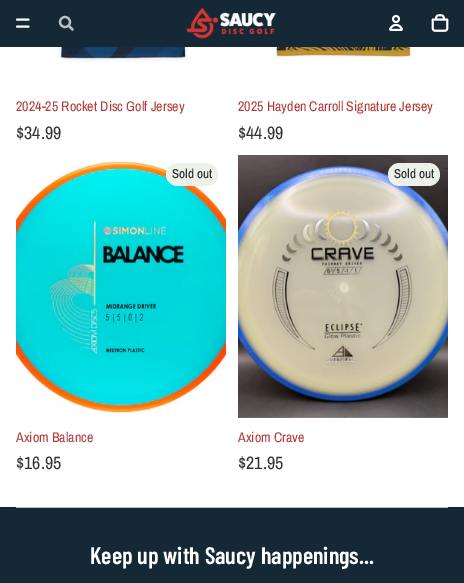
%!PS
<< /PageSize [464 583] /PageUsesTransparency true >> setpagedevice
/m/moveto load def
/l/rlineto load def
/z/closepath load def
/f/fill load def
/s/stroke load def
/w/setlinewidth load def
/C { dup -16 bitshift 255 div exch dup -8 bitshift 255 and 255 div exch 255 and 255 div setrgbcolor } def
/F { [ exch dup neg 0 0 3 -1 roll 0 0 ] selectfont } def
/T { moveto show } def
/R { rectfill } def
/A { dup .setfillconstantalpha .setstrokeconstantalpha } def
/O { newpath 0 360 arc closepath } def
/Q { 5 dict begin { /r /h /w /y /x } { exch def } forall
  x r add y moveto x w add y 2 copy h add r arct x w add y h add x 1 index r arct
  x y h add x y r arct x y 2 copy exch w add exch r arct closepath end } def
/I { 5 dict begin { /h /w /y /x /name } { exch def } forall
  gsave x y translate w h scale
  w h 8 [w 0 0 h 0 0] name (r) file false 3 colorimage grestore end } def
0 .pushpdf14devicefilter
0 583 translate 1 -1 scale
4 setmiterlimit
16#FFFFFF C
0 0 464 583 R
16#142836 C
0 0 464 47 R
16#FFFFFF C
1.9 w
1 setlinecap
17 19.5 m 11.5 0 l 17 26.5 m 11.5 0 l s
16#B9BFC3 C
2.2 w
0 setlinecap
65 22 5 O s
1 setlinecap
1 setlinejoin
69 26 m 3.5 3.5 l s
(1.rgb) 186 7 90 32 I
(2.rgb) 389 14 14 17 I
(3.rgb) 431 14 18 18 I
(4.rgb) 58 47 130 16 I
/ArchivoNarrow-Regular 14 F
16#B13A3A C
(2024-25 Rocket Disc Golf Jersey) 16 111 T
/ArchivoNarrow-Regular 18 F
16#303030 C
($34.99) 16 139 T
(5.rgb) 238 47 210 11 I
/ArchivoNarrow-Regular 14 F
16#B13A3A C
(2025 Hayden Carroll Signature Jersey) 238 111 T
/ArchivoNarrow-Regular 18 F
16#303030 C
($44.99) 238 139 T
(6.rgb) 16 160 210 253 I
16#EEF1EA C
166 163 52 23 11.5 Q f
/ArchivoNarrow-Medium 13 F
16#303030 C
(Sold out) 172 178 T
/ArchivoNarrow-Regular 14 F
16#B13A3A C
(Axiom Balance) 16 442 T
/ArchivoNarrow-Regular 18 F
16#303030 C
($16.95) 16 469 T
(7.rgb) 238 155 210 263 I
16#EEF1EA C
388 163 52 23 11.5 Q f
/ArchivoNarrow-Medium 13 F
16#303030 C
(Sold out) 394 178 T
/ArchivoNarrow-Regular 14 F
16#B13A3A C
(Axiom Crave) 238 442 T
/ArchivoNarrow-Regular 18 F
16#303030 C
($21.95) 238 469 T
16#142836 C
0 507 464 76 R
16#B6BCC1 C
448 507 m 0 1 l -1 -1 l z f
0.69 A
16#FFFFFF C
448 508 m -432 0 l 0 -1 l 431 0 l z f
/BarlowCondensed-SemiBold 24 F
1 A
(Keep up with Saucy happenings...) 90 564 T
.poppdf14devicefilter showpage
